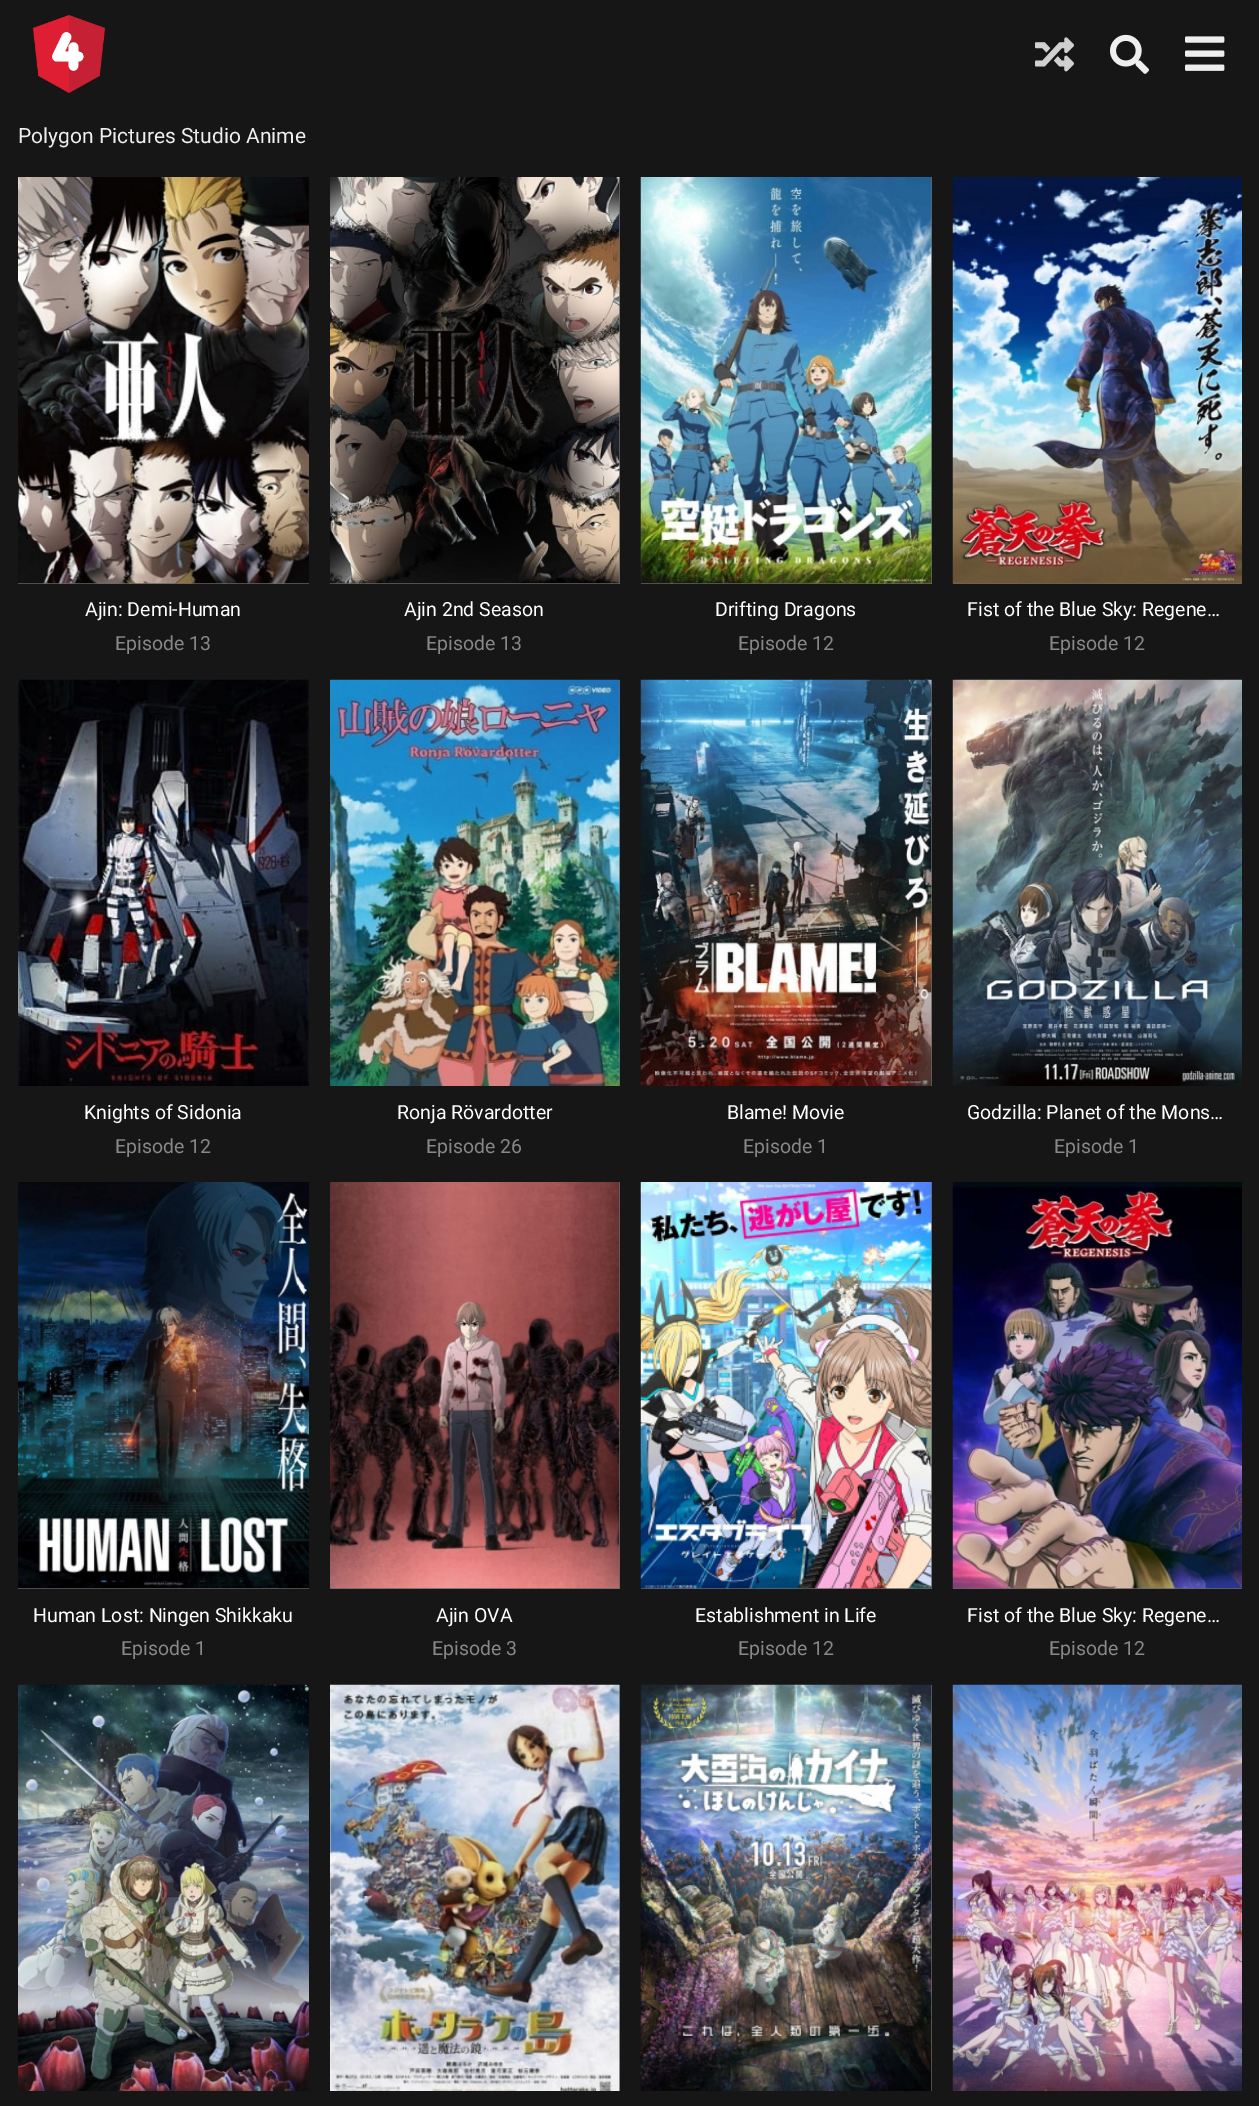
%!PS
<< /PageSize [1259 2106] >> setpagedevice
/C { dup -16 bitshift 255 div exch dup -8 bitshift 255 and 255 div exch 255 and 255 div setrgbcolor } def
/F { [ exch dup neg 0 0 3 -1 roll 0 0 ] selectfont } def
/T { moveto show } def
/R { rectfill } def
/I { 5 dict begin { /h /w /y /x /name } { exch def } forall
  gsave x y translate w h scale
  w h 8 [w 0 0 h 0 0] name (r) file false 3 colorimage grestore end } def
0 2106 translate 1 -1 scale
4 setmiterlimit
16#161616 C
0 0 1259 2106 R
(1.rgb) 33 15 72 78 I
(2.rgb) 1035 37 39 35 I
(3.rgb) 1110 34 39 40 I
(4.rgb) 1185 36 40 35 I
/Roboto-Regular 21 F
16#EEEEEE C
(Polygon Pictures Studio Anime) 18 143 T
16#666666 C
18 583 291 1 R
(5.rgb) 18 177 291 407 I
/Roboto-Regular 19.5 F
16#FFFFFF C
(Ajin: Demi-Human) 85 616 T
16#888888 C
(Episode 13) 115 650 T
16#666666 C
330 177 290 407 R
(6.rgb) 330 177 290 407 I
16#FFFFFF C
(Ajin 2nd Season) 404 616 T
16#888888 C
(Episode 13) 426 650 T
16#666666 C
641 177 291 407 R
(7.rgb) 640 177 292 407 I
16#FFFFFF C
(Drifting Dragons) 715 616 T
16#888888 C
(Episode 12) 738 650 T
16#666666 C
953 583 289 1 R
(8.rgb) 952 177 290 407 I
16#FFFFFF C
(Fist of the Blue Sky: Regene…) 967 616 T
16#888888 C
(Episode 12) 1049 650 T
(9.rgb) 18 679 291 407 I
16#FFFFFF C
(Knights of Sidonia) 84 1119 T
16#888888 C
(Episode 12) 115 1153 T
16#666666 C
619 680 1 406 R
(10.rgb) 330 679 290 407 I
16#FFFFFF C
(Ronja Rövardotter) 397 1119 T
16#888888 C
(Episode 26) 426 1153 T
16#666666 C
931 680 1 406 R
(11.rgb) 640 679 292 407 I
16#FFFFFF C
(Blame! Movie) 727 1119 T
16#888888 C
(Episode 1) 743 1153 T
(12.rgb) 952 679 290 407 I
16#FFFFFF C
(Godzilla: Planet of the Mons…) 967 1119 T
16#888888 C
(Episode 1) 1054 1153 T
16#666666 C
18 1588 291 1 R
(13.rgb) 18 1182 291 407 I
16#FFFFFF C
(Human Lost: Ningen Shikkaku) 33 1622 T
16#888888 C
(Episode 1) 121 1655 T
16#666666 C
330 1182 290 407 R
(14.rgb) 330 1182 290 407 I
16#FFFFFF C
(Ajin OVA) 436 1622 T
16#888888 C
(Episode 3) 432 1655 T
16#666666 C
641 1182 291 407 R
(15.rgb) 640 1182 292 407 I
16#FFFFFF C
(Establishment in Life) 695 1622 T
16#888888 C
(Episode 12) 738 1655 T
16#666666 C
953 1588 289 1 R
(16.rgb) 952 1182 290 407 I
16#FFFFFF C
(Fist of the Blue Sky: Regene…) 967 1622 T
16#888888 C
(Episode 12) 1049 1655 T
(17.rgb) 18 1684 291 407 I
16#666666 C
619 1685 1 406 R
(18.rgb) 330 1684 290 407 I
931 1685 1 406 R
(19.rgb) 640 1684 292 407 I
(20.rgb) 952 1684 290 407 I
showpage
